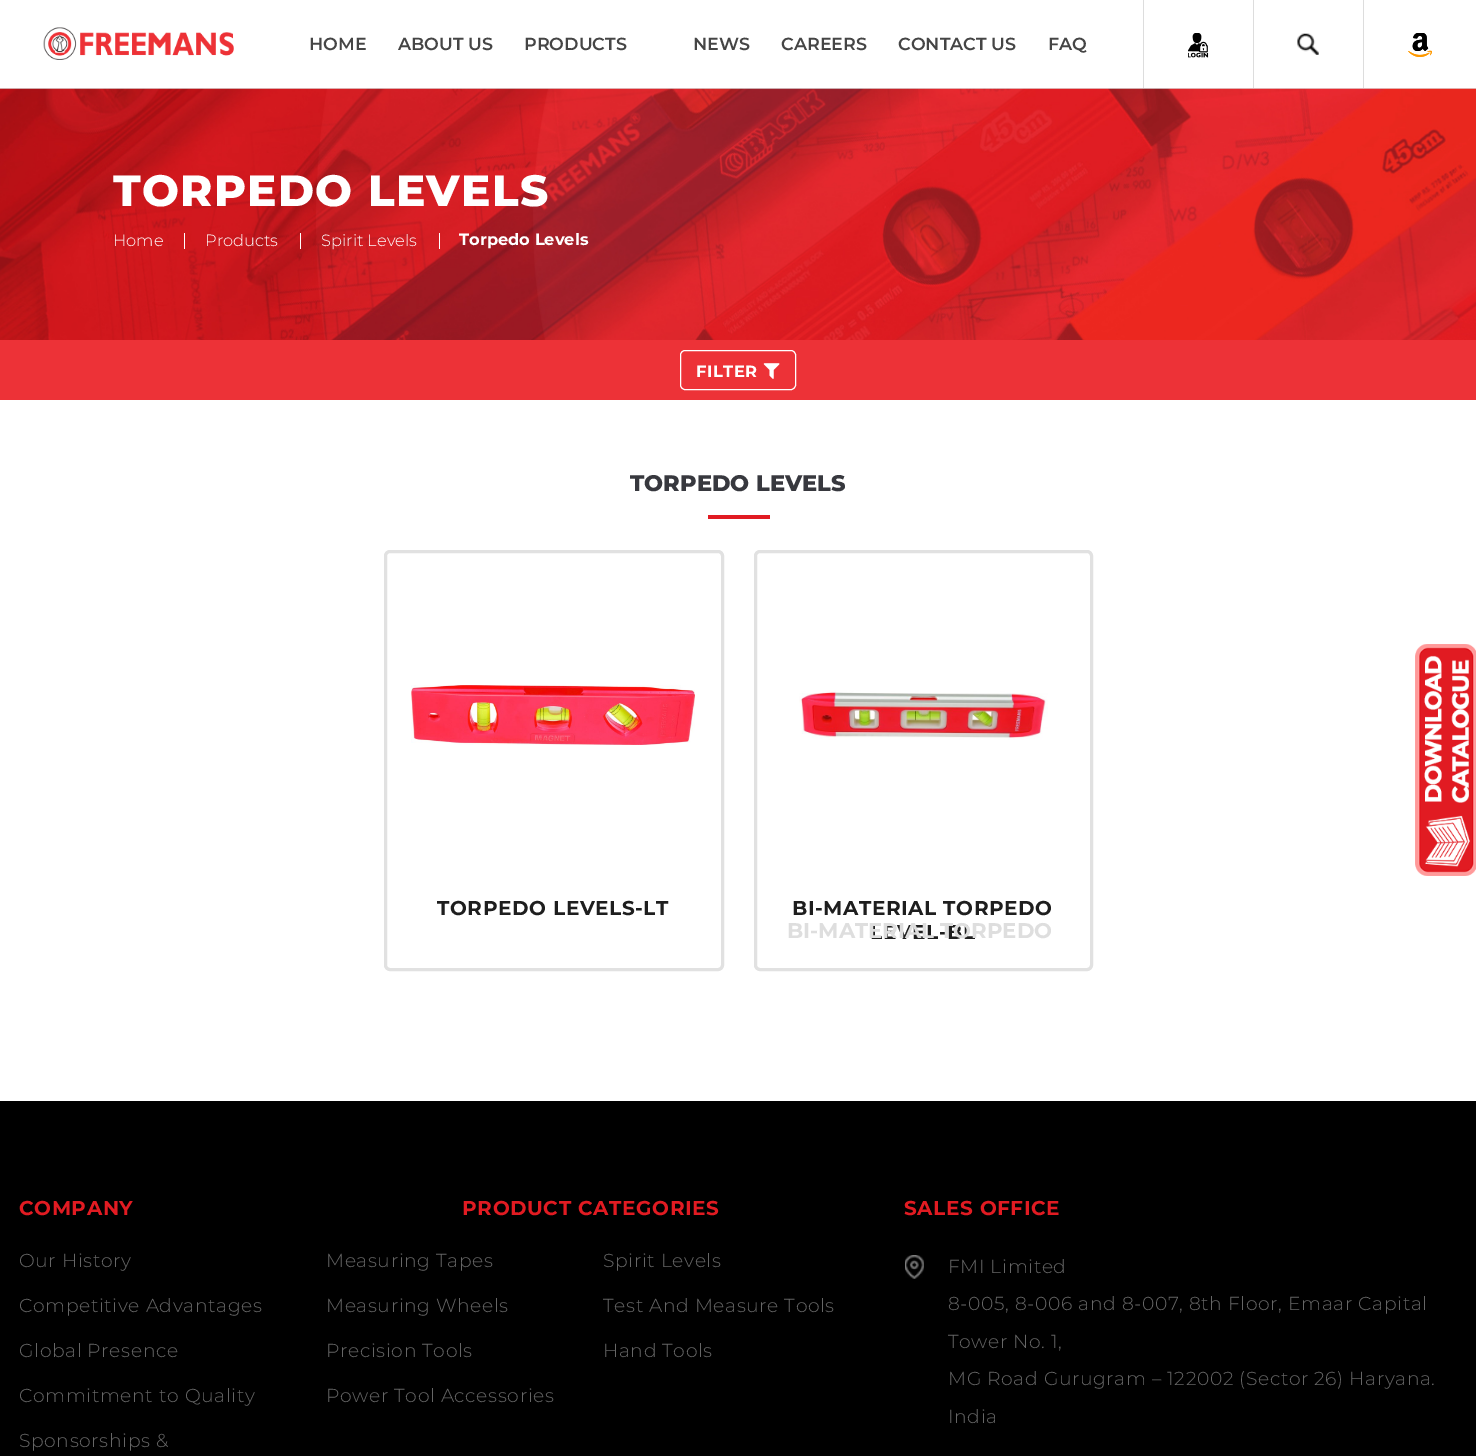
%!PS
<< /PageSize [1476 1456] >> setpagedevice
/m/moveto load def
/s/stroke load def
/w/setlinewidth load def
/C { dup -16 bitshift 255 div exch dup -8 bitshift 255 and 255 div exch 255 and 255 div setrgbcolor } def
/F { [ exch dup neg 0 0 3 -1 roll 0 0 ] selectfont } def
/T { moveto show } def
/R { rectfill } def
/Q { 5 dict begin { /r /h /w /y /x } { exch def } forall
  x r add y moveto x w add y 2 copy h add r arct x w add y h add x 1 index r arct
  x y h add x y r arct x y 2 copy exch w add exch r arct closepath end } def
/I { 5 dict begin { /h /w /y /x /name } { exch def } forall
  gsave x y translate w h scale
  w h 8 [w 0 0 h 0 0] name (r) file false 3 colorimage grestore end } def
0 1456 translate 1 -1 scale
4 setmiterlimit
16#FFFFFF C
0 0 1476 1456 R
16#DDDDDD C
0 88 1476 1 R
(1.rgb) 43 27 191 33 I
1143 0 1 88 R
/Montserrat-SemiBold 17.5 F
16#454545 C
(HOME) 309 50 T
(ABOUT US) 398 50 T
(PRODUCTS) 524 50 T
(NEWS) 693 50 T
(CAREERS) 781 50 T
(CONTACT US) 898 50 T
(FAQ) 1048 50 T
16#DDDDDD C
1253 0 1 88 R
(2.rgb) 1188 33 21 25 I
1363 0 1 88 R
(3.rgb) 1297 33 22 22 I
(4.rgb) 1408 33 24 24 I
(5.rgb) 0 88 1476 252 I
/Montserrat-ExtraBold 43.75 F
16#FFFFFF C
113 206 m 1.25 0 (TORPEDO LEVELS) ashow
/Montserrat-Light 16.25 F
(Home) 113 246 T
184 233 1 16 R
(Products) 205 246 T
300 233 1 16 R
(Spirit Levels) 321 246 T
439 233 1 16 R
/Montserrat-Bold 16.25 F
(Torpedo Levels) 459 245 T
16#ED3237 C
0 340 1476 60 R
16#FFFFFF C
680.5 350.5 115 39 4.5 Q s
696 377 m .6 0 (FILTER) ashow
(6.rgb) 763 363 17 16 I
/Montserrat-ExtraBold 22.5 F
16#37383E C
(TORPEDO LEVELS) 630 491 T
16#E11B22 C
708 515 62 4 R
16#E1E1E1 C
3 w
385.5 551.5 337 418 4.5 Q s
(7.rgb) 411 685 284 60 I
/Montserrat-Bold 20 F
16#1E1E1E C
437 915 m .6 0 (TORPEDO LEVELS-LT) ashow
16#E1E1E1 C
755.5 551.5 336 418 4.5 Q s
(8.rgb) 799 690 249 50 I
16#1E1E1E C
792 915 m .6 0 (BI-MATERIAL TORPEDO) ashow
870 939 m .6 0 (LEVEL-BL) ashow
/Montserrat-Bold 21.25 F
16#DEDEDE C
(BI-MATERIAL TORPEDO) 787 938 T
(9.rgb) 1415 644 61 232 I
16#000000 C
0 1101 1476 355 R
/Montserrat-Bold 20 F
16#E11B22 C
19 1215 m .6 0 (COMPANY) ashow
/Montserrat-Light 18.75 F
16#666666 C
19 1267 m .6 0 (Our History) ashow
19 1312 m .6 0 (Competitive Advantages) ashow
19 1357 m .6 0 (Global Presence) ashow
19 1402 m .6 0 (Commitment to Quality) ashow
19 1447 m .6 0 (Sponsorships &) ashow
/Montserrat-Bold 20 F
16#E11B22 C
462 1215 m .6 0 (PRODUCT CATEGORIES) ashow
/Montserrat-Light 18.75 F
16#666666 C
326 1267 m .6 0 (Measuring Tapes) ashow
603 1267 m .6 0 (Spirit Levels) ashow
326 1312 m .6 0 (Measuring Wheels) ashow
603 1312 m .6 0 (Test And Measure Tools) ashow
326 1357 m .6 0 (Precision Tools) ashow
603 1357 m .6 0 (Hand Tools) ashow
326 1402 m .6 0 (Power Tool Accessories) ashow
/Montserrat-Bold 20 F
16#E11B22 C
904 1215 m .6 0 (SALES OFFICE) ashow
(10.rgb) 905 1255 19 24 I
/Montserrat-Light 18.75 F
16#666666 C
948 1273 m .6 0 (FMI Limited) ashow
948 1310 m .6 0 (8-005, 8-006 and 8-007, 8th Floor, Emaar Capital) ashow
948 1348 m .6 0 (Tower No. 1,) ashow
948 1385 m .6 0 (MG Road Gurugram – 122002 \(Sector 26\) Haryana.) ashow
948 1423 m .6 0 (India) ashow
showpage
